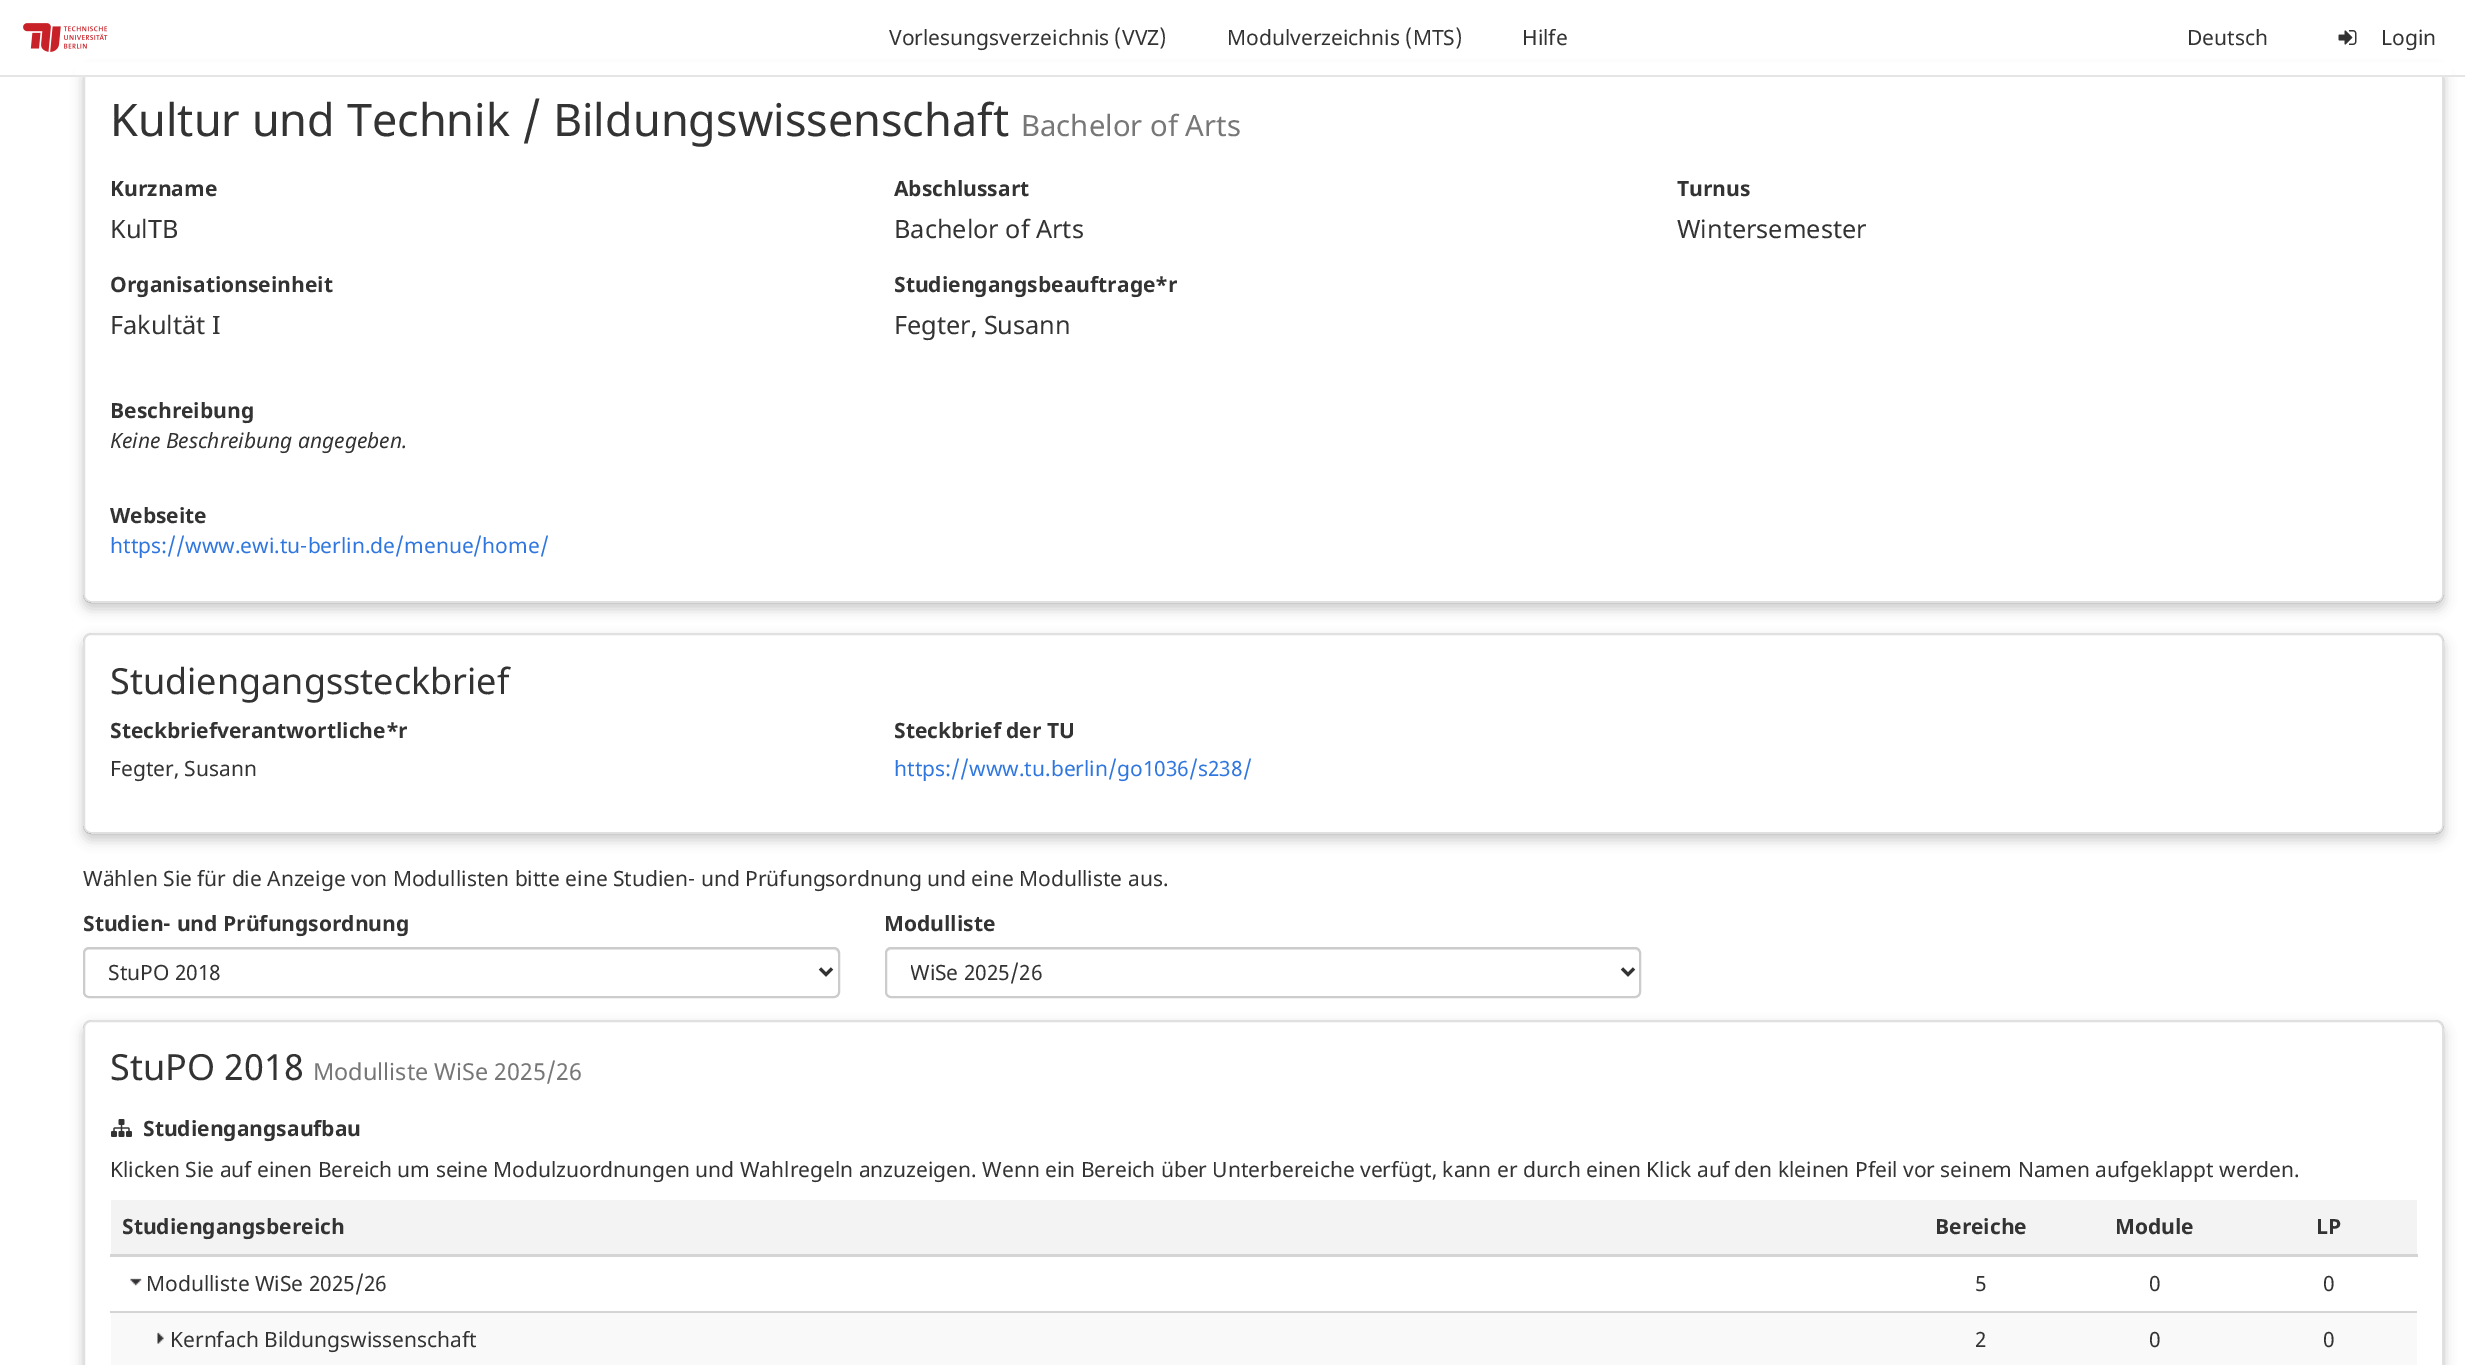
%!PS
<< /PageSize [2465 1365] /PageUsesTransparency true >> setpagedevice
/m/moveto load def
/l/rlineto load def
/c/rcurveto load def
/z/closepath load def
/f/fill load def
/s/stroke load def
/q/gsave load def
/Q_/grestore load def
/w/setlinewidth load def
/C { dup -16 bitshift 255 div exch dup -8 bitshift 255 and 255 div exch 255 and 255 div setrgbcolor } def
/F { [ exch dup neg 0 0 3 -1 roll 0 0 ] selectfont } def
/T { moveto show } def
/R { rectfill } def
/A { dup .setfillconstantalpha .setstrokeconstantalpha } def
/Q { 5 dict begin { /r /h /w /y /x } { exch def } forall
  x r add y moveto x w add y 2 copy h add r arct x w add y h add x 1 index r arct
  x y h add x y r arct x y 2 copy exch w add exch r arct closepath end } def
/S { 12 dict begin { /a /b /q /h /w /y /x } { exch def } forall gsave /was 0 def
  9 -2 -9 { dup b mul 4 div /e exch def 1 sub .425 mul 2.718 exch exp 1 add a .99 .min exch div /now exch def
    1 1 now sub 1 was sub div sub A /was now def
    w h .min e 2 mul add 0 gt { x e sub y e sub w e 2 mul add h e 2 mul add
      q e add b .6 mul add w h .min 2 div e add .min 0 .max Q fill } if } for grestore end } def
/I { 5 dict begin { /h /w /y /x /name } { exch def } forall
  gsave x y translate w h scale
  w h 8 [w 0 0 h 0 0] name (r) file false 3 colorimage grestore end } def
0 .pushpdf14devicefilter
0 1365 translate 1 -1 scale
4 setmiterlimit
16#FFFFFF C
0 0 2465 1365 R
q
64 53 m 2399 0 l 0 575 l -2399 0 l z 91 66 m 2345 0 l 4.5 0 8 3.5 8 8 c 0 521 l 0 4.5 -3.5 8 -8 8 c -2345 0 l -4.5 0 -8 -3.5 -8 -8 c 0 -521 l 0 -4.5 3.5 -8 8 -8 c z eoclip newpath
16#000000 C
83 72 2361 537 8 6 .2 S
Q_
0.12 A
16#000000 C
2 w
84 67 2359 535 7 Q s
1 A
16#FFFFFF C
75 62 2377 13 R
(1.rgb) 23 23 85 29 I
/NotoSans-Regular 21 F
16#333333 C
(Vorlesungsverzeichnis \(VVZ\)) 889 45 T
(Modulverzeichnis \(MTS\)) 1227 45 T
(Hilfe) 1522 45 T
(Deutsch) 2187 45 T
(2.rgb) 2338 30 19 15 I
(Login) 2381 45 T
16#E5E5E5 C
0 75 2465 2 R
/NotoSans-Regular 45 F
16#333333 C
(Kultur und Technik / Bildungswissenschaft) 110 136 T
/NotoSans-Regular 29.25 F
16#777777 C
(Bachelor of Arts) 1021 136 T
/NotoSans-Bold 21 F
16#333333 C
(Kurzname) 110 196 T
/NotoSans-Regular 25.25 F
(KulTB) 110 238 T
/NotoSans-Bold 21 F
(Abschlussart) 894 196 T
/NotoSans-Regular 25.25 F
(Bachelor of Arts) 894 238 T
/NotoSans-Bold 21 F
(Turnus) 1677 196 T
/NotoSans-Regular 25.25 F
(Wintersemester) 1677 238 T
/NotoSans-Bold 21 F
(Organisationseinheit) 110 292 T
/NotoSans-Regular 25.25 F
(Fakultät I) 110 334 T
/NotoSans-Bold 21 F
(Studiengangsbeauftrage*r) 894 292 T
/NotoSans-Regular 25.25 F
(Fegter, Susann) 894 334 T
/NotoSans-Bold 21 F
(Beschreibung) 110 418 T
/NotoSans-Italic 21 F
(Keine Beschreibung angegeben.) 110 448 T
/NotoSans-Bold 21 F
(Webseite) 110 523 T
/NotoSans-Regular 21 F
16#2F76DF C
(https://www.ewi.tu-berlin.de/menue/home/) 110 553 T
q
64 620 m 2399 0 l 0 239 l -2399 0 l z 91 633 m 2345 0 l 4.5 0 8 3.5 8 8 c 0 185 l 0 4.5 -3.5 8 -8 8 c -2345 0 l -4.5 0 -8 -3.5 -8 -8 c 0 -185 l 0 -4.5 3.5 -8 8 -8 c z eoclip newpath
16#000000 C
83 639 2361 201 8 6 .2 S
Q_
0.12 A
16#000000 C
84 634 2359 199 7 Q s
/NotoSans-Regular 36 F
1 A
16#333333 C
(Studiengangssteckbrief) 110 694 T
/NotoSans-Bold 21 F
(Steckbriefverantwortliche*r) 110 738 T
/NotoSans-Regular 21 F
(Fegter, Susann) 110 776 T
/NotoSans-Bold 21 F
(Steckbrief der TU) 894 738 T
/NotoSans-Regular 21 F
16#2F76DF C
(https://www.tu.berlin/go1036/s238/) 894 776 T
16#333333 C
(Wählen Sie für die Anzeige von Modullisten bitte eine Studien- und Prüfungsordnung und eine Modulliste aus.) 83 886 T
/NotoSans-Bold 21 F
(Studien- und Prüfungsordnung) 83 931 T
16#ECECEC C
88 950 m 746 0 l 2 0 4 2 4 4 c 0 40 l 1 -1 1 -2 1 -3 c 0 -38 l 0 -3 -2 -5 -5 -5 c -745 0 l -3 0 -5 2 -5 5 c 0 1 l 0 -2 2 -4 4 -4 c z f
16#CCCCCC C
84 948 755 49 5 Q s
16#333333 C
3 w
820 968.5 m 6 6 l 6 -6 l s
/NotoSans-Regular 21 F
(StuPO 2018) 108 980 T
/NotoSans-Bold 21 F
(Modulliste) 884 931 T
16#ECECEC C
891 950 m 744 0 l 2 0 5 2 5 4 c 0 -1 l 0 -3 -2 -5 -5 -5 c -743 0 l -2 0 -4 2 -5 4 c 1 -1 3 -2 4 -2 c z f
16#CCCCCC C
2 w
886 948 754 49 5 Q s
16#333333 C
3 w
1622 968.5 m 6 6 l 6 -6 l s
q
911 957 687 32 rectclip
/NotoSans-Regular 21 F
(WiSe 2025/26) 910 980 T
Q_
q
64 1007 m 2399 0 l 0 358 l -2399 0 l z 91 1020 m 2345 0 l 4.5 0 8 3.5 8 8 c 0 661 l 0 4.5 -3.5 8 -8 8 c -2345 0 l -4.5 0 -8 -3.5 -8 -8 c 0 -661 l 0 -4.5 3.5 -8 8 -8 c z eoclip newpath
16#000000 C
83 1026 2361 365 8 6 .2 S
Q_
0.12 A
16#000000 C
2 w
84 1021 2359 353 7 Q s
/NotoSans-Regular 36 F
1 A
16#333333 C
(StuPO 2018) 110 1080 T
/NotoSans-Regular 23.4 F
16#777777 C
(Modulliste WiSe 2025/26) 313 1080 T
(3.rgb) 111 1119 21 18 I
/NotoSans-Bold 21 F
16#333333 C
(Studiengangsaufbau) 143 1136 T
/NotoSans-Regular 21 F
(Klicken Sie auf einen Bereich um seine Modulzuordnungen und Wahlregeln anzuzeigen. Wenn ein Bereich über Unterbereiche verfügt, kann er durch einen Klick auf den kleinen Pfeil vor seinem Namen aufgeklappt werden.) 110 1177 T
16#F3F3F3 C
111 1200 2306 54 R
16#D4D4D4 C
110 1254 2308 3 R
/NotoSans-Bold 21 F
16#333333 C
(Studiengangsbereich) 122 1234 T
(Bereiche) 1935 1234 T
(Module) 2115 1234 T
(LP) 2316 1234 T
(4.rgb) 130 1278 12 8 I
/NotoSans-Regular 21 F
(Modulliste WiSe 2025/26) 146 1291 T
(5) 1975 1291 T
(0) 2149 1291 T
(0) 2323 1291 T
16#F9F9F9 C
111 1313 2306 52 R
(5.rgb) 157 1332 7 12 I
16#333333 C
(Kernfach Bildungswissenschaft) 170 1347 T
(2) 1975 1347 T
(0) 2149 1347 T
16#D4D4D4 C
110 1311 2307 2 R
16#333333 C
(0) 2323 1347 T
.poppdf14devicefilter showpage
